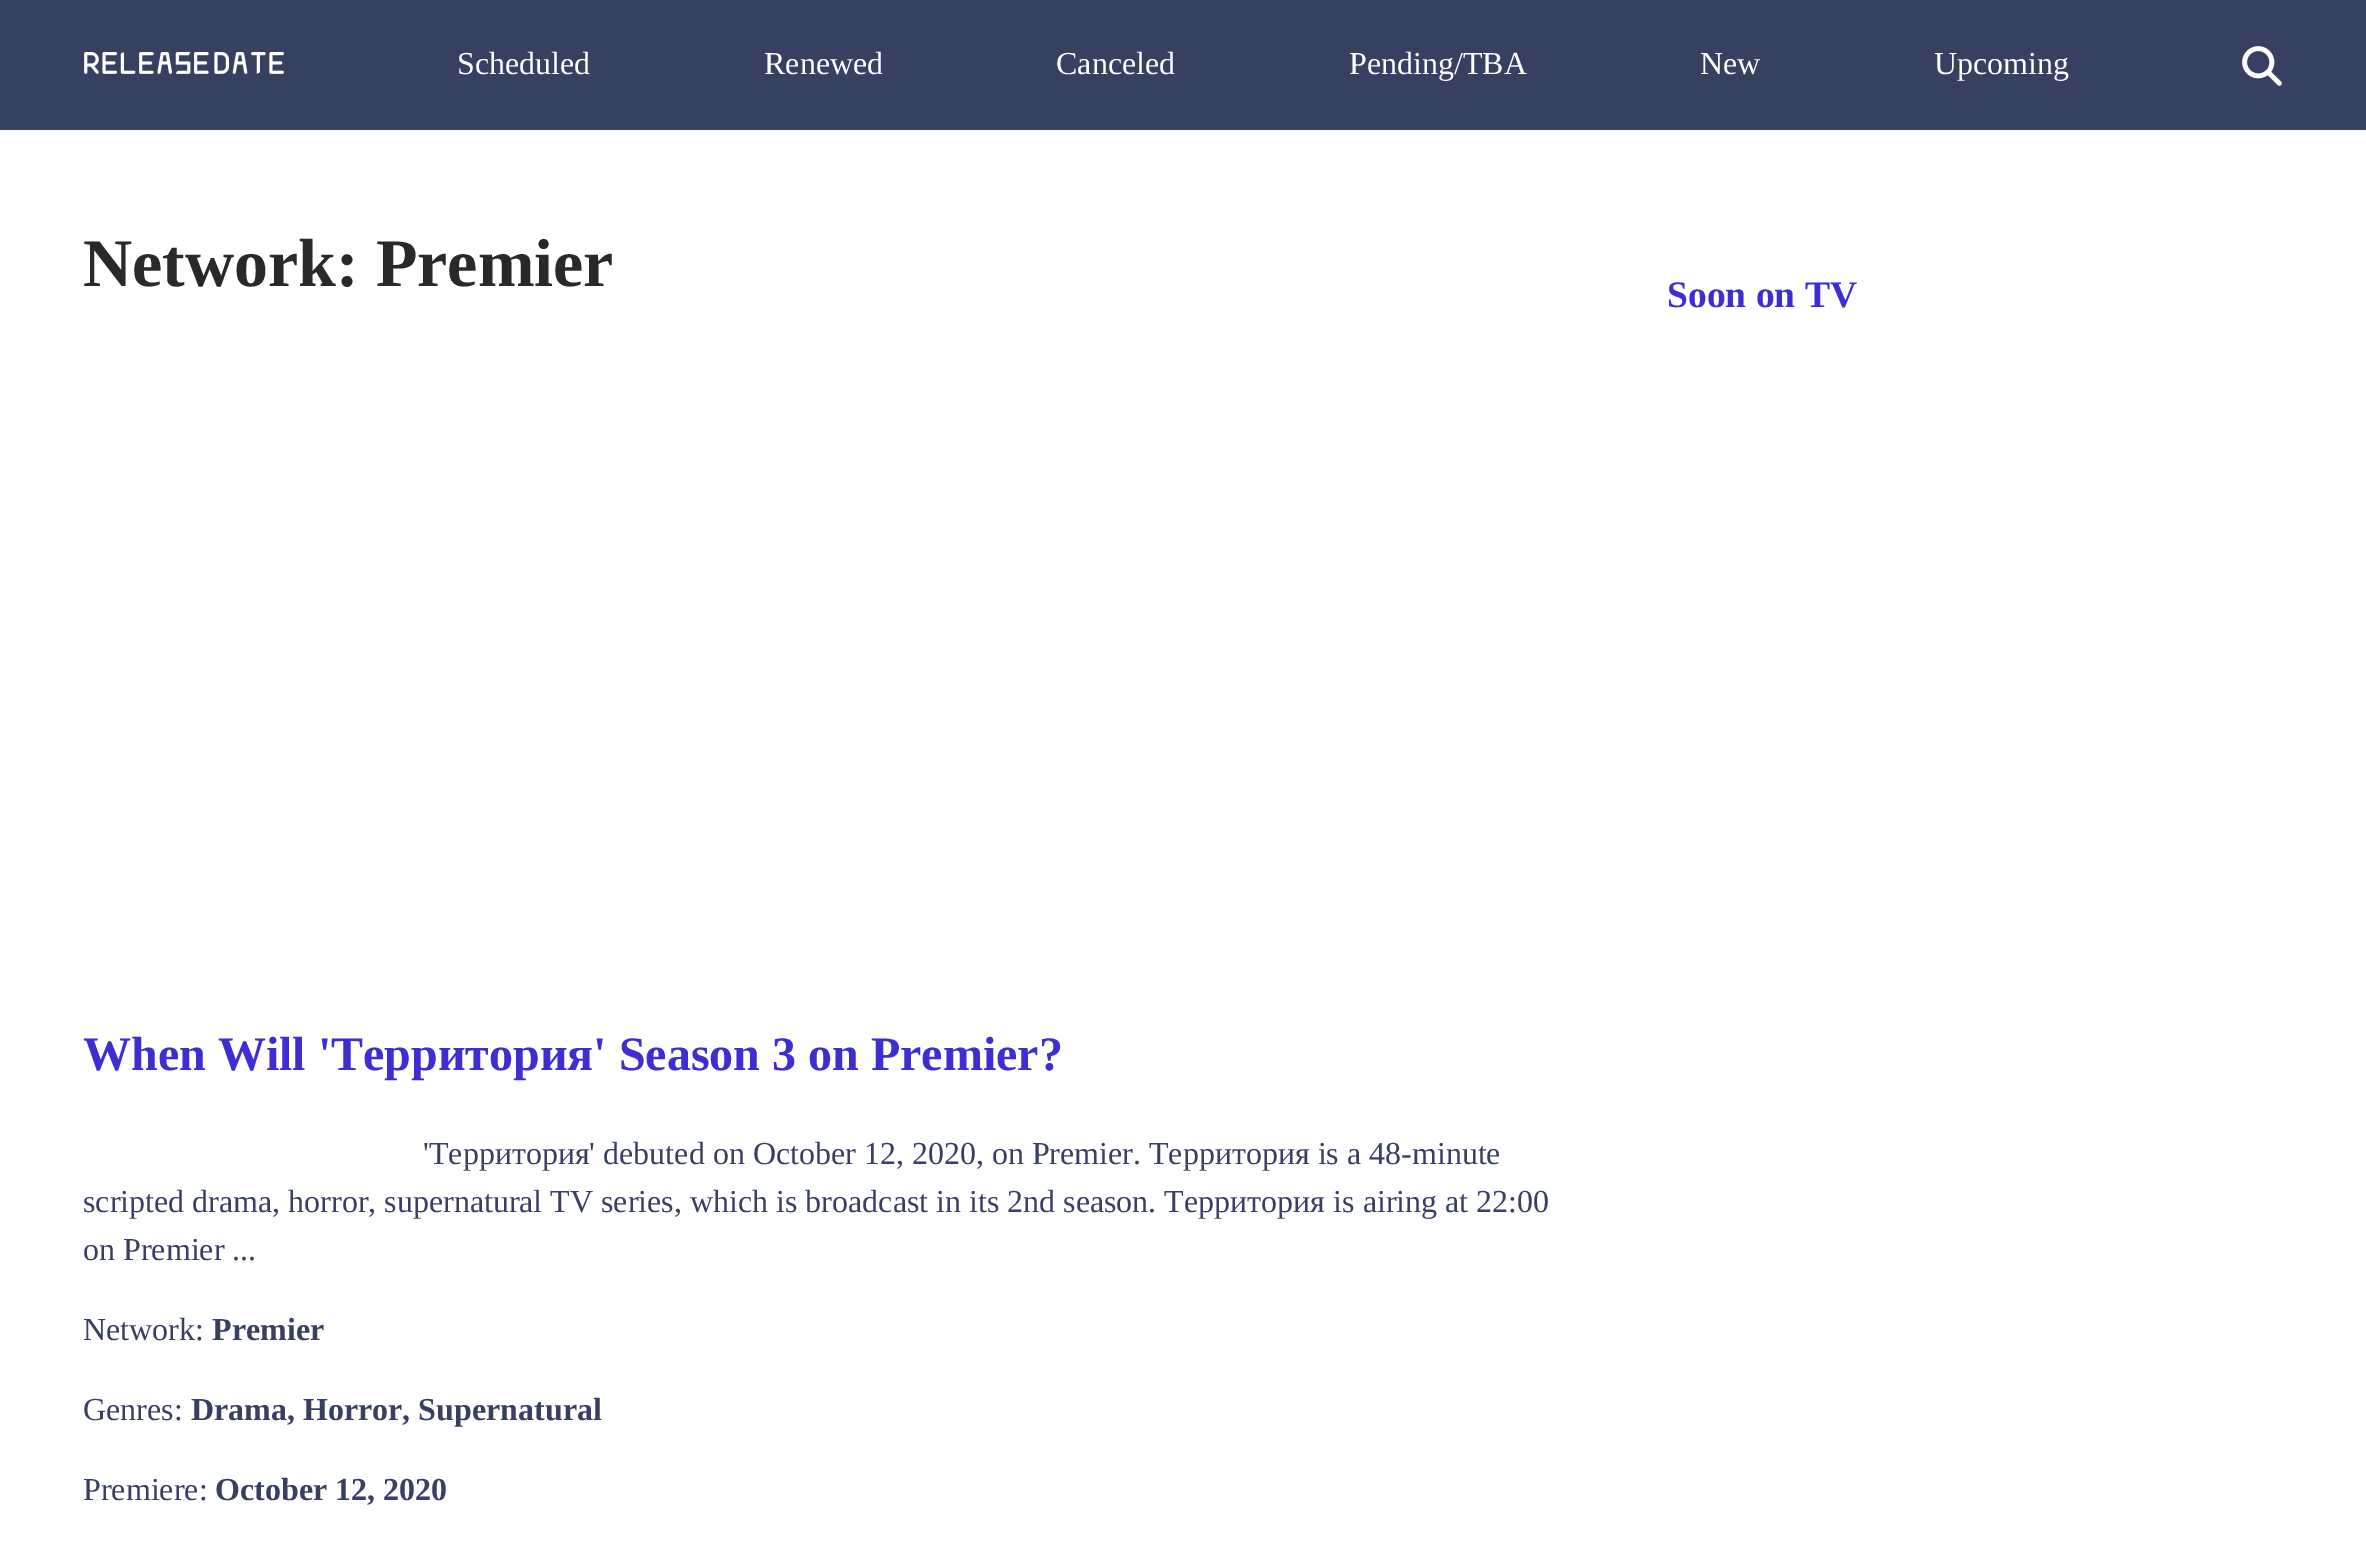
%!PS
<< /PageSize [2366 1561] >> setpagedevice
/C { dup -16 bitshift 255 div exch dup -8 bitshift 255 and 255 div exch 255 and 255 div setrgbcolor } def
/F { [ exch dup neg 0 0 3 -1 roll 0 0 ] selectfont } def
/T { moveto show } def
/R { rectfill } def
/I { 5 dict begin { /h /w /y /x /name } { exch def } forall
  gsave x y translate w h scale
  w h 8 [w 0 0 h 0 0] name (r) file false 3 colorimage grestore end } def
0 1561 translate 1 -1 scale
4 setmiterlimit
16#FFFFFF C
0 0 2366 1561 R
16#384062 C
0 0 2366 130 R
(1.rgb) 84 52 200 22 I
/LiberationSerif-Regular 32 F
16#FFFFFF C
(Scheduled) 457 74 T
(Renewed) 764 74 T
(Canceled) 1056 74 T
(Pending/TBA) 1349 74 T
(New) 1700 74 T
(Upcoming) 1934 74 T
(2.rgb) 2242 46 40 40 I
/LiberationSerif-Bold 68 F
16#292929 C
(Network: Premier) 83 286 T
/LiberationSerif-Bold 48 F
16#3D2DD3 C
(When Will 'Территория' Season 3 on Premier?) 83 1070 T
/LiberationSerif-Regular 32 F
16#384062 C
('Территория' debuted on October 12, 2020, on Premier. Территория is a 48-minute) 423 1164 T
(scripted drama, horror, supernatural TV series, which is broadcast in its 2nd season. Территория is airing at 22:00) 83 1212 T
(on Premier ...) 83 1260 T
(Network:) 83 1340 T
/LiberationSerif-Bold 32 F
(Premier) 212 1340 T
/LiberationSerif-Regular 32 F
(Genres:) 83 1420 T
/LiberationSerif-Bold 32 F
(Drama, Horror, Supernatural) 191 1420 T
/LiberationSerif-Regular 32 F
(Premiere:) 83 1500 T
/LiberationSerif-Bold 32 F
(October 12, 2020) 215 1500 T
/LiberationSerif-Bold 37.5 F
16#3D2DD3 C
(Soon on TV) 1667 307 T
showpage
